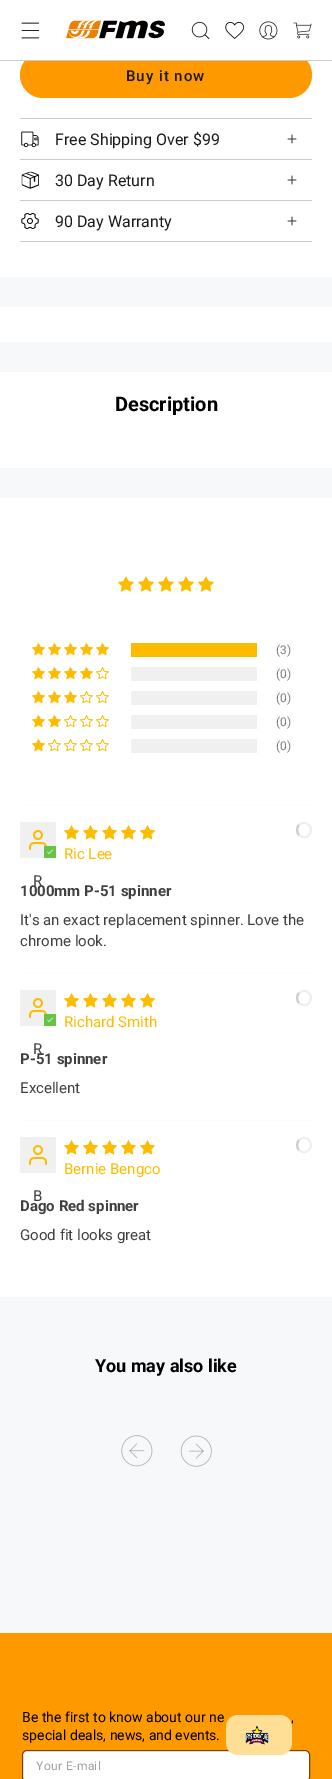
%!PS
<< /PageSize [332 1779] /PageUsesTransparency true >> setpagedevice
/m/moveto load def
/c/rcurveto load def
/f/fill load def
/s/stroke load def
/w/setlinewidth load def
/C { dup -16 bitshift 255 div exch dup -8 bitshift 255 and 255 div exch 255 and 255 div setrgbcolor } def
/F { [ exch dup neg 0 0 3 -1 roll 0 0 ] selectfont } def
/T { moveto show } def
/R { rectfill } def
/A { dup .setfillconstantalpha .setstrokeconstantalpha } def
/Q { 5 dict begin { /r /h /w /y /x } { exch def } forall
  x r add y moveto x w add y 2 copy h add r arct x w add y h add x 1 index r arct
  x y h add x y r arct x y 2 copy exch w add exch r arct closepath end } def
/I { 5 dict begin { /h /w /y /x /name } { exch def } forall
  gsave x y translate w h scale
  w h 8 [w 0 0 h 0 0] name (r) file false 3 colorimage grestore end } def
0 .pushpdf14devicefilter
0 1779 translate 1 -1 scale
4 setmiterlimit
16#F7F8FA C
0 0 332 1779 R
16#FFFFFF C
0 61 332 216 R
16#FF9900 C
20 52 292 46 23 Q f
16#FFFFFF C
0 0 332 60 R
16#CBCBCB C
0 60 332 1 R
(1.rgb) 21 22 19 17 I
(2.rgb) 66 20 99 19 I
(3.rgb) 191 21 19 19 I
(4.rgb) 225 21 19 18 I
(5.rgb) 259 21 19 19 I
(6.rgb) 293 22 19 17 I
/Roboto-Medium 15 F
16#1A1A1A C
126 81 m 1 0 (Buy it now) ashow
16#CACACA C
20 118 292 1 R
(7.rgb) 21 131 18 17 I
/Roboto-Regular 16 F
16#1A1A1A C
(Free Shipping Over $99) 55 145 T
(8.rgb) 287 134 10 10 I
16#CACACA C
20 159 292 1 R
(9.rgb) 21 171 18 18 I
16#1A1A1A C
(30 Day Return) 55 186 T
(8.rgb) 287 175 10 10 I
16#CACACA C
20 200 292 1 R
20 241 292 1 R
(10.rgb) 21 213 18 16 I
16#1A1A1A C
(90 Day Warranty) 55 227 T
(8.rgb) 287 216 10 10 I
16#FFFFFF C
0 307 332 35 R
0 372 332 96 R
/Roboto-Bold 20 F
16#000000 C
(Description) 115 411 T
16#FFFFFF C
0 498 332 799 R
(11.rgb) 118 576 16 16 I
(11.rgb) 138 576 16 16 I
(11.rgb) 158 576 16 16 I
(11.rgb) 178 576 16 16 I
(11.rgb) 198 576 16 16 I
(12.rgb) 32 643 13 13 I
(12.rgb) 48 643 13 13 I
(12.rgb) 64 643 13 13 I
(12.rgb) 80 643 13 13 I
(12.rgb) 96 643 13 13 I
16#FDBC00 C
131 643 126 14 R
/Roboto-Regular 12 F
16#7B7B7B C
(\(3\)) 276 654 T
(12.rgb) 32 667 13 13 I
(12.rgb) 48 667 13 13 I
(12.rgb) 64 667 13 13 I
(12.rgb) 80 667 13 13 I
(13.rgb) 96 667 13 13 I
16#F0F0F0 C
131 667 126 14 R
16#7B7B7B C
(\(0\)) 276 678 T
(12.rgb) 32 691 13 13 I
(12.rgb) 48 691 13 13 I
(12.rgb) 64 691 13 13 I
(13.rgb) 80 691 13 13 I
(13.rgb) 96 691 13 13 I
16#F0F0F0 C
131 691 126 14 R
16#7B7B7B C
(\(0\)) 276 702 T
(12.rgb) 32 715 13 13 I
(12.rgb) 48 715 13 13 I
(13.rgb) 64 715 13 13 I
(13.rgb) 80 715 13 13 I
(13.rgb) 96 715 13 13 I
16#F0F0F0 C
131 715 126 14 R
16#7B7B7B C
(\(0\)) 276 726 T
(12.rgb) 32 739 13 13 I
(13.rgb) 48 739 13 13 I
(13.rgb) 64 739 13 13 I
(13.rgb) 80 739 13 13 I
(13.rgb) 96 739 13 13 I
16#F0F0F0 C
131 739 126 14 R
16#7B7B7B C
(\(0\)) 276 750 T
16#FCFCFC C
20 805 292 1 R
(14.rgb) 64 825 15 15 I
(14.rgb) 83 825 15 15 I
(14.rgb) 102 825 15 15 I
(14.rgb) 121 825 15 15 I
(14.rgb) 140 825 15 15 I
16#EEEEEE C
2 w
299 825 m 1.5 -1.5 3 -2 5 -2 c 8.5 0 9.5 12 1.5 14 c -2.5 .5 -5 -.5 -6.5 -2 c s
16#CCCCCC C
299 835 m -2.5 -2.5 -2.5 -7.5 0 -10 c s
/Roboto-Regular 15 F
16#FDBC00 C
(Ric Lee) 64 859 T
16#F0F0F0 C
20 822 36 36 R
(15.rgb) 29 830 18 20 I
16#66C345 C
44 846 12 12 R
(16.rgb) 47 849 6 5 I
16#404040 C
(R) 33 886 T
/Roboto-Bold 15 F
(1000mm P-51 spinner) 20 896 T
/Roboto-Regular 15 F
(It's an exact replacement spinner. Love the) 20 925 T
(chrome look.) 20 946 T
16#FCFCFC C
20 973 292 1 R
(14.rgb) 64 993 15 15 I
(14.rgb) 83 993 15 15 I
(14.rgb) 102 993 15 15 I
(14.rgb) 121 993 15 15 I
(14.rgb) 140 993 15 15 I
16#EEEEEE C
299 993 m 1.5 -1.5 4 -2.5 6.5 -2 c 8 2 7 14 -1.5 14 c -2 0 -3.5 -.5 -5 -2 c s
16#CCCCCC C
299 1003 m -2.5 -2.5 -2.5 -7.5 0 -10 c s
16#FDBC00 C
(Richard Smith) 64 1027 T
16#F0F0F0 C
20 990 36 36 R
(15.rgb) 29 998 18 20 I
16#66C345 C
44 1014 12 12 R
(16.rgb) 47 1017 6 5 I
16#404040 C
(R) 33 1054 T
/Roboto-Bold 15 F
(P-51 spinner) 20 1064 T
/Roboto-Regular 15 F
(Excellent) 20 1093 T
16#FCFCFC C
20 1120 292 1 R
(14.rgb) 64 1140 15 15 I
(14.rgb) 83 1140 15 15 I
(14.rgb) 102 1140 15 15 I
(14.rgb) 121 1140 15 15 I
(14.rgb) 140 1140 15 15 I
16#EEEEEE C
299 1140 m 1.5 -1.5 4 -2.5 6.5 -2 c 8 2 7 14 -1.5 14 c -2 0 -3.5 -.5 -5 -2 c s
16#CCCCCC C
299 1150 m -2.5 -2.5 -2.5 -7.5 0 -10 c s
16#FDBC00 C
(Bernie Bengco) 64 1174 T
16#F0F0F0 C
20 1137 36 36 R
(15.rgb) 29 1145 18 20 I
16#404040 C
(B) 33 1201 T
/Roboto-Bold 15 F
(Dago Red spinner) 20 1211 T
/Roboto-Regular 15 F
(Good fit looks great) 20 1240 T
/Roboto-Bold 18 F
16#000000 C
(You may also like) 95 1372 T
(17.rgb) 121 1435 32 32 I
(18.rgb) 180 1435 32 32 I
16#FF9900 C
0 1633 332 146 R
/Roboto-Regular 14 F
16#000000 C
(Be the first to know about our ne) 22 1722 T
(,) 291 1722 T
(special deals, news, and events.) 22 1740 T
16#FFFFFF C
23 1751 286 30 4 Q f
0.55 A
16#000000 C
1 w
22.5 1750.5 287 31 4.5 Q s
/Roboto-Regular 12 F
1 A
16#9F9F9F C
36 1770 m .4 0 (Your E-mail) ashow
16#FFDE96 C
226 1715 66 40 12 Q f
(19.rgb) 245 1725 24 20 I
.poppdf14devicefilter showpage
